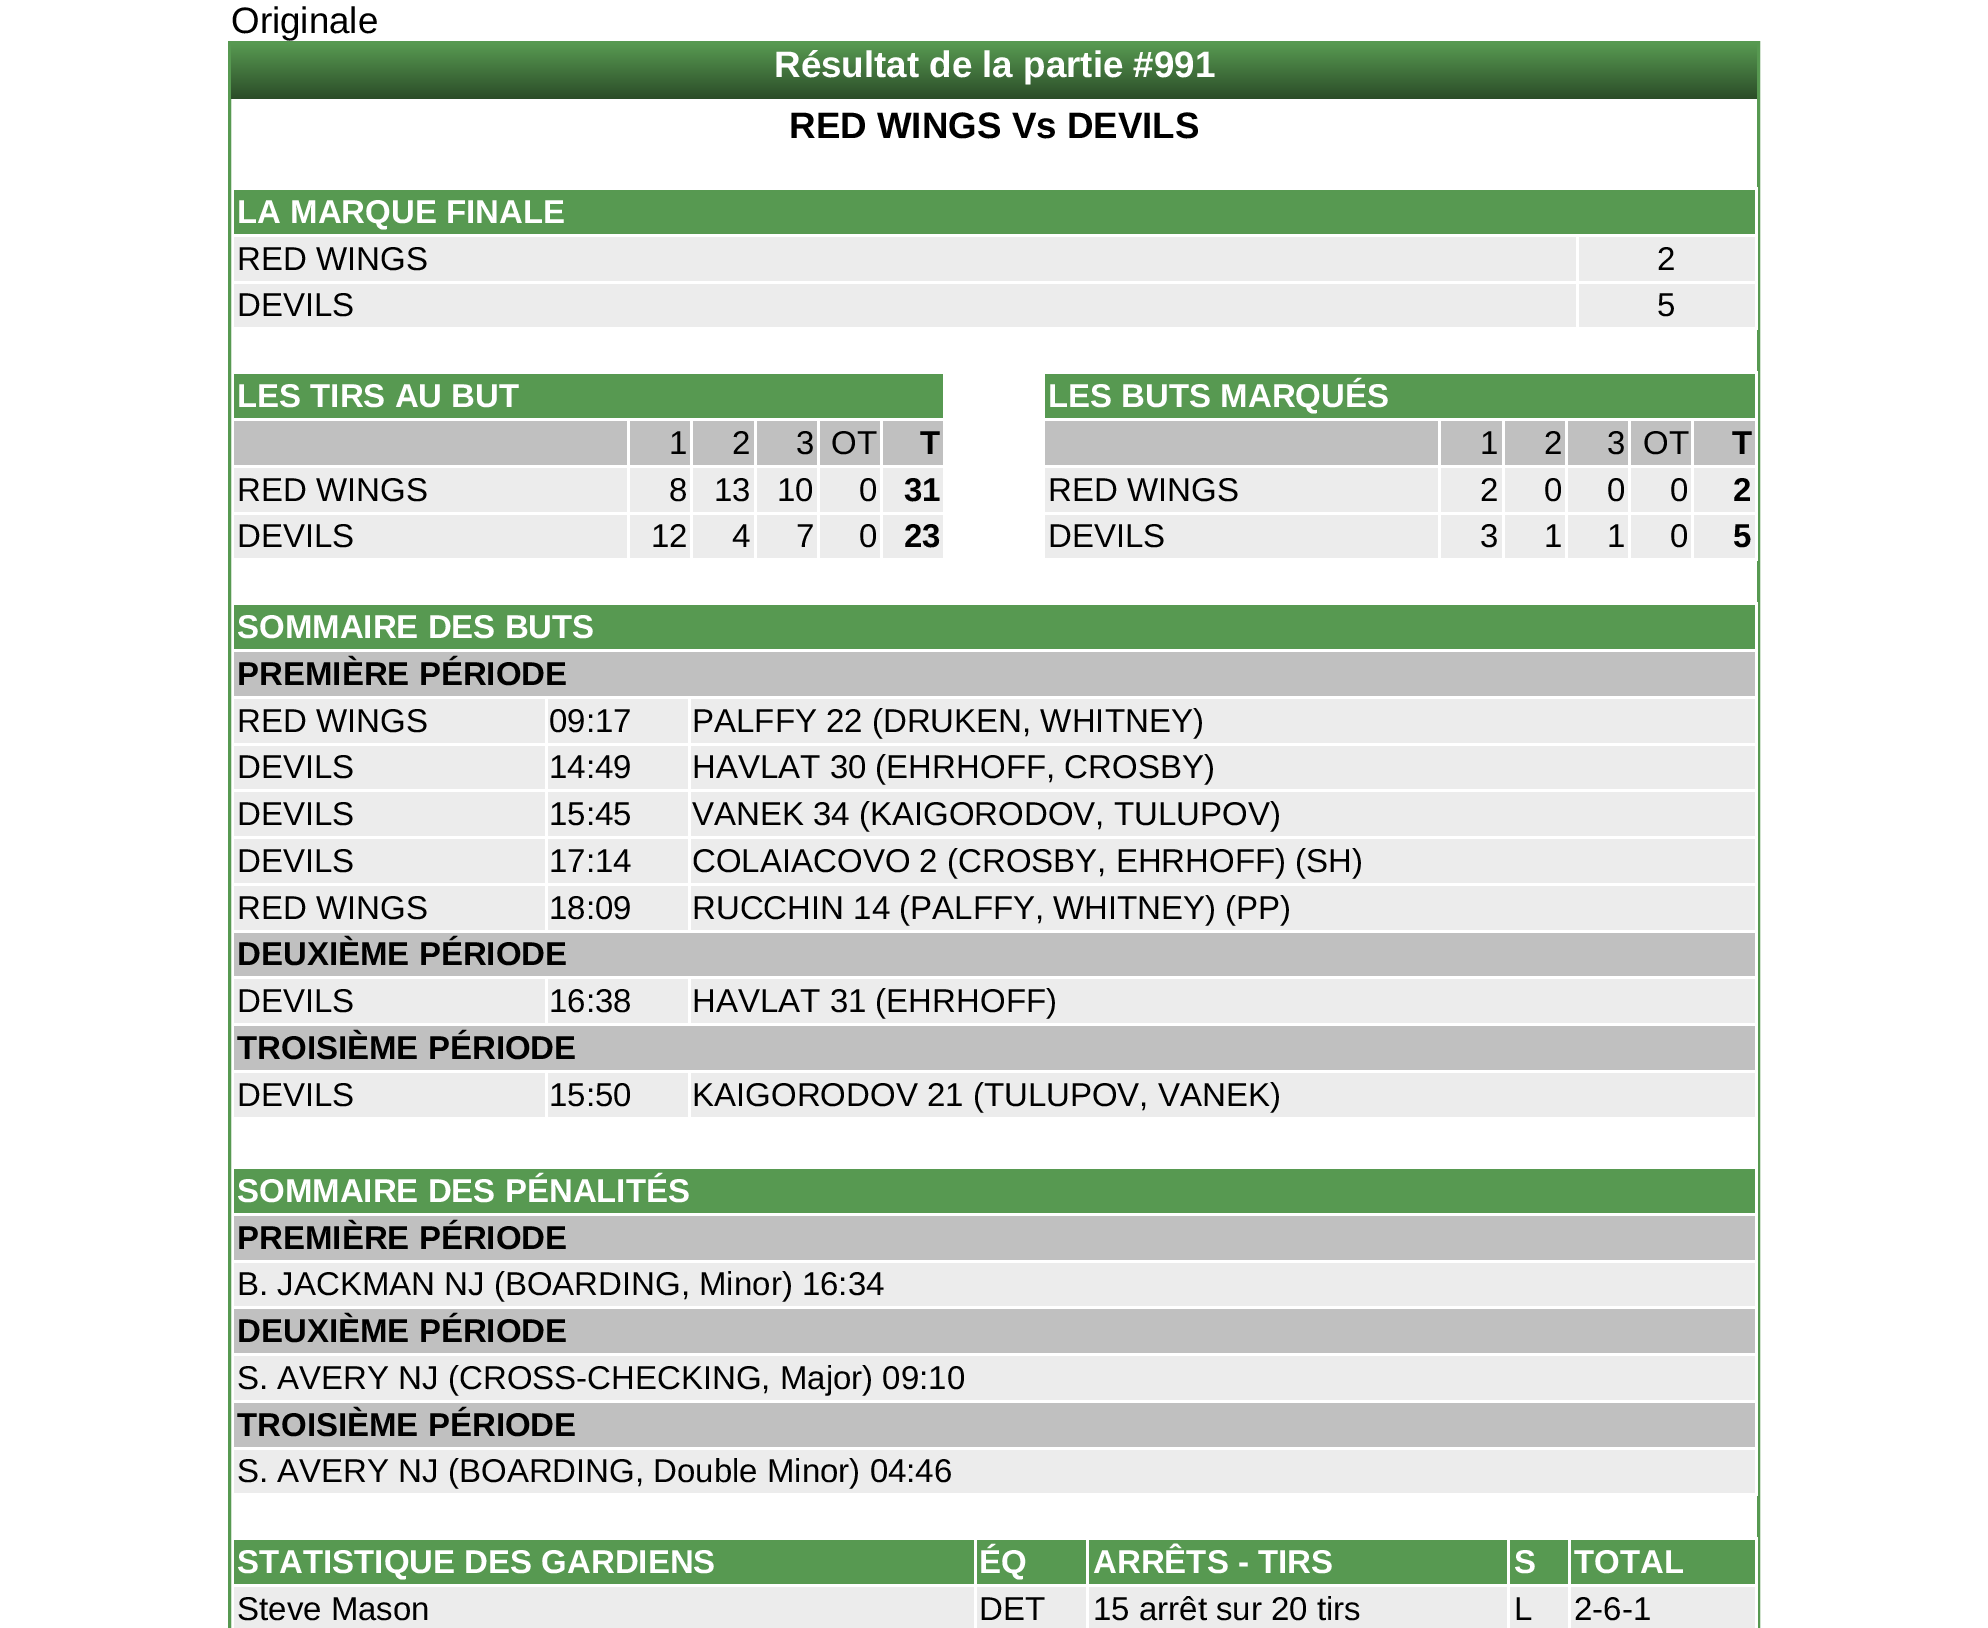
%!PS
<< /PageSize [1988 1628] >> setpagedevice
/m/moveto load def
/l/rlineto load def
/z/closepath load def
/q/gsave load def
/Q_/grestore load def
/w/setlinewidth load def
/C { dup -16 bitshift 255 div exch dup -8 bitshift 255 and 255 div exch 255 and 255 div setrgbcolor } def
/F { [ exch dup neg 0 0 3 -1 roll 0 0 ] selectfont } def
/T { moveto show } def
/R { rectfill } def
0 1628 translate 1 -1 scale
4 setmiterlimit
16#FFFFFF C
0 0 1988 1628 R
/LiberationSans-Regular 36.75 F
16#000000 C
(Originale) 231 33 T
16#579951 C
3 w
229.5 42.5 1529 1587 rectstroke
q 231 44 m 1526 0 l 0 55 l -1526 0 l z clip newpath
<< /ShadingType 2 /ColorSpace /DeviceRGB /Coords [994 44 994 99] /Extend [true true] /Function << /FunctionType 2 /Domain [0 1] /C0 [.341 .6 .318] /C1 [.169 .298 .157] /N 1 >> >> shfill Q_
/LiberationSans-Bold 36.75 F
16#FFFFFF C
(Résultat de la partie #991) 774 77 T
16#000000 C
(RED WINGS Vs DEVILS) 789 138 T
16#579951 C
234 190 1521 44 R
/LiberationSans-Bold 33 F
16#FFFFFF C
(LA MARQUE FINALE) 237 223 T
16#ECECEC C
234 237 1521 44 R
/LiberationSans-Regular 33 F
16#000000 C
(RED WINGS) 237 270 T
(2) 1657 270 T
16#ECECEC C
234 284 1521 43 R
16#000000 C
(DEVILS) 237 316 T
16#FFFFFF C
1757 187 1 143 R
1576 234 3 96 R
16#000000 C
(5) 1657 316 T
16#579951 C
234 374 709 44 R
/LiberationSans-Bold 33 F
16#FFFFFF C
(LES TIRS AU BUT) 237 407 T
16#C0C0C0 C
234 421 709 44 R
/LiberationSans-Regular 33 F
16#000000 C
(1) 669 454 T
(2) 732 454 T
(3) 796 454 T
(OT) 831 454 T
/LiberationSans-Bold 33 F
(T) 920 454 T
16#ECECEC C
234 468 709 44 R
/LiberationSans-Regular 33 F
16#000000 C
(RED WINGS) 237 501 T
(8) 669 501 T
(13) 714 501 T
(10) 777 501 T
(0) 859 501 T
/LiberationSans-Bold 33 F
(31) 904 501 T
16#ECECEC C
234 515 709 43 R
/LiberationSans-Regular 33 F
16#000000 C
(DEVILS) 237 547 T
16#FFFFFF C
627 418 3 143 R
16#000000 C
(12) 651 547 T
16#FFFFFF C
690 418 3 143 R
16#000000 C
(4) 732 547 T
16#FFFFFF C
754 418 3 143 R
16#000000 C
(7) 796 547 T
16#FFFFFF C
817 418 3 143 R
16#000000 C
(0) 859 547 T
16#FFFFFF C
880 418 3 143 R
/LiberationSans-Bold 33 F
16#000000 C
(23) 904 547 T
16#579951 C
1045 374 710 44 R
16#FFFFFF C
(LES BUTS MARQUÉS) 1048 407 T
16#C0C0C0 C
1045 421 710 44 R
/LiberationSans-Regular 33 F
16#000000 C
(1) 1480 454 T
(2) 1544 454 T
(3) 1607 454 T
(OT) 1643 454 T
/LiberationSans-Bold 33 F
(T) 1732 454 T
16#ECECEC C
1045 468 710 44 R
/LiberationSans-Regular 33 F
16#000000 C
(RED WINGS) 1048 501 T
(2) 1480 501 T
(0) 1544 501 T
(0) 1607 501 T
(0) 1670 501 T
/LiberationSans-Bold 33 F
(2) 1733 501 T
16#ECECEC C
1045 515 710 43 R
/LiberationSans-Regular 33 F
16#000000 C
(DEVILS) 1048 547 T
16#FFFFFF C
1438 418 3 143 R
16#000000 C
(3) 1480 547 T
16#FFFFFF C
1502 418 3 143 R
16#000000 C
(1) 1544 547 T
16#FFFFFF C
1565 418 3 143 R
16#000000 C
(1) 1607 547 T
16#FFFFFF C
1628 418 3 143 R
16#000000 C
(0) 1670 547 T
16#FFFFFF C
1757 371 1 190 R
1691 418 3 143 R
/LiberationSans-Bold 33 F
16#000000 C
(5) 1733 547 T
16#579951 C
234 605 1521 44 R
16#FFFFFF C
(SOMMAIRE DES BUTS) 237 638 T
16#C0C0C0 C
234 652 1521 44 R
16#000000 C
(PREMIÈRE PÉRIODE) 237 685 T
16#ECECEC C
234 699 1521 44 R
/LiberationSans-Regular 33 F
16#000000 C
(RED WINGS) 237 732 T
(09:17) 549 732 T
(PALFFY 22 \(DRUKEN, WHITNEY\)) 692 732 T
16#ECECEC C
234 746 1521 43 R
16#000000 C
(DEVILS) 237 778 T
(14:49) 549 778 T
(HAVLAT 30 \(EHRHOFF, CROSBY\)) 692 778 T
16#ECECEC C
234 792 1521 44 R
16#000000 C
(DEVILS) 237 825 T
(15:45) 549 825 T
(VANEK 34 \(KAIGORODOV, TULUPOV\)) 692 825 T
16#ECECEC C
234 839 1521 44 R
16#000000 C
(DEVILS) 237 872 T
(17:14) 549 872 T
(COLAIACOVO 2 \(CROSBY, EHRHOFF\) \(SH\)) 692 872 T
16#ECECEC C
234 886 1521 44 R
16#000000 C
(RED WINGS) 237 919 T
16#FFFFFF C
545 696 3 236 R
16#000000 C
(18:09) 549 919 T
16#FFFFFF C
688 696 3 236 R
16#000000 C
(RUCCHIN 14 \(PALFFY, WHITNEY\) \(PP\)) 692 919 T
16#C0C0C0 C
234 933 1521 43 R
/LiberationSans-Bold 33 F
16#000000 C
(DEUXIÈME PÉRIODE) 237 965 T
16#ECECEC C
234 979 1521 44 R
/LiberationSans-Regular 33 F
16#000000 C
(DEVILS) 237 1012 T
16#FFFFFF C
545 976 3 50 R
16#000000 C
(16:38) 549 1012 T
16#FFFFFF C
688 976 3 50 R
16#000000 C
(HAVLAT 31 \(EHRHOFF\)) 692 1012 T
16#C0C0C0 C
234 1026 1521 44 R
/LiberationSans-Bold 33 F
16#000000 C
(TROISIÈME PÉRIODE) 237 1059 T
16#ECECEC C
234 1073 1521 44 R
/LiberationSans-Regular 33 F
16#000000 C
(DEVILS) 237 1106 T
16#FFFFFF C
545 1070 3 49 R
16#000000 C
(15:50) 549 1106 T
16#FFFFFF C
1757 602 1 517 R
688 1070 3 49 R
16#000000 C
(KAIGORODOV 21 \(TULUPOV, VANEK\)) 692 1106 T
16#579951 C
234 1169 1521 44 R
/LiberationSans-Bold 33 F
16#FFFFFF C
(SOMMAIRE DES PÉNALITÉS) 237 1202 T
16#C0C0C0 C
234 1216 1521 44 R
16#000000 C
(PREMIÈRE PÉRIODE) 237 1249 T
16#ECECEC C
234 1263 1521 43 R
/LiberationSans-Regular 33 F
16#000000 C
(B. JACKMAN NJ \(BOARDING, Minor\) 16:34) 237 1295 T
16#C0C0C0 C
234 1309 1521 44 R
/LiberationSans-Bold 33 F
16#000000 C
(DEUXIÈME PÉRIODE) 237 1342 T
16#ECECEC C
234 1356 1521 44 R
/LiberationSans-Regular 33 F
16#000000 C
(S. AVERY NJ \(CROSS-CHECKING, Major\) 09:10) 237 1389 T
16#C0C0C0 C
234 1403 1521 44 R
/LiberationSans-Bold 33 F
16#000000 C
(TROISIÈME PÉRIODE) 237 1436 T
16#ECECEC C
234 1450 1521 43 R
16#FFFFFF C
1757 1119 1 377 R
/LiberationSans-Regular 33 F
16#000000 C
(S. AVERY NJ \(BOARDING, Double Minor\) 04:46) 237 1482 T
16#579951 C
234 1540 1521 44 R
/LiberationSans-Bold 33 F
16#FFFFFF C
(STATISTIQUE DES GARDIENS) 237 1573 T
(ÉQ) 979 1573 T
(ARRÊTS - TIRS) 1093 1573 T
(S) 1514 1573 T
(TOTAL) 1574 1573 T
16#ECECEC C
234 1587 1521 41 R
/LiberationSans-Regular 33 F
16#000000 C
(Steve Mason) 237 1620 T
16#FFFFFF C
974 1537 3 91 R
16#000000 C
(DET) 979 1620 T
16#FFFFFF C
1086 1537 3 91 R
16#000000 C
(15 arrêt sur 20 tirs) 1093 1620 T
16#FFFFFF C
1507 1537 3 91 R
16#000000 C
(L) 1514 1620 T
16#FFFFFF C
1757 1537 1 91 R
1568 1537 3 91 R
16#000000 C
(2-6-1) 1574 1620 T
showpage
